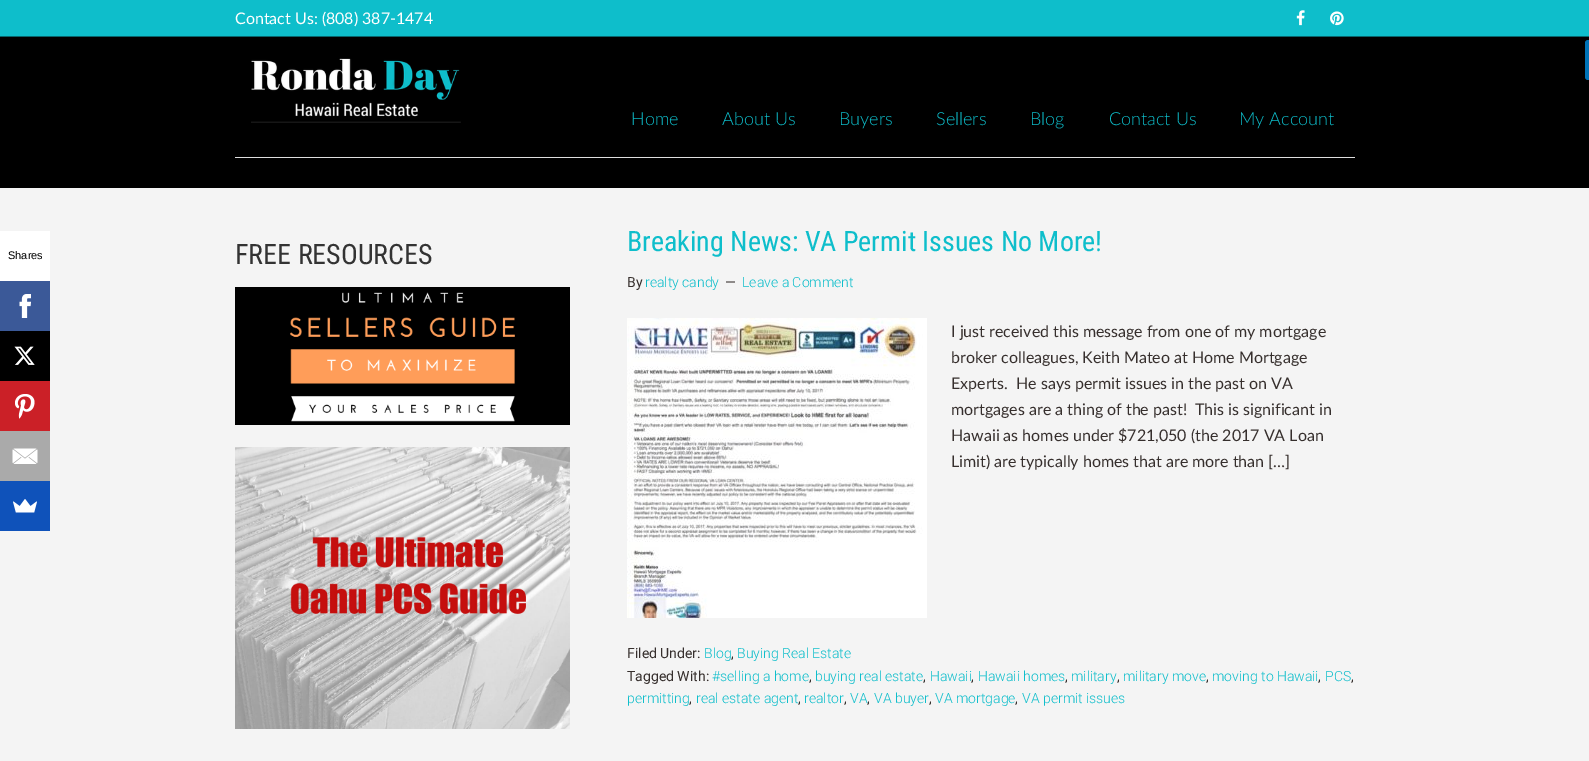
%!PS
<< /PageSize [1589 761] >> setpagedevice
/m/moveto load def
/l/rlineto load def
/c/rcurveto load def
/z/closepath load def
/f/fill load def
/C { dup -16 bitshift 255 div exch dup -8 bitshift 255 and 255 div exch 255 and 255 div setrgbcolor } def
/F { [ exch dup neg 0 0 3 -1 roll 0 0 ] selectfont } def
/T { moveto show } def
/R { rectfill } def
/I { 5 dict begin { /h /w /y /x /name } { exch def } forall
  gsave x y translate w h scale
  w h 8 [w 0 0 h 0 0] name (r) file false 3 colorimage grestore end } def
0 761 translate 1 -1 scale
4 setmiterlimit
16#F4F4F4 C
0 0 1589 761 R
16#0EBECB C
0 0 1589 36 R
16#06666D C
0 36 1589 1 R
/Lato-Regular 16 F
16#FFFFFF C
(Contact Us: \(808\) 387-1474) 235 24 T
(1.rgb) 1296 10 9 16 I
(2.rgb) 1330 11 14 15 I
16#000000 C
0 37 1589 151 R
16#0073B7 C
1588 40 m 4 0 l 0 40 l -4 0 l -1.5 0 -3 -1.5 -3 -3 c 0 -34 l 0 -1.5 1.5 -3 3 -3 c z f
16#FFFFFF C
0 231 50 50 R
/LiberationSans-Regular 11 F
16#000000 C
(Shares) 8 259 T
16#3B5998 C
0 281 50 50 R
(3.rgb) 19 294 12 24 I
16#000000 C
0 331 50 50 R
(4.rgb) 14 346 21 19 I
16#CB2027 C
0 381 50 50 R
(5.rgb) 15 394 20 25 I
16#AAAAAA C
0 431 50 50 R
(6.rgb) 12 448 26 16 I
16#0F52BA C
0 481 50 50 R
(7.rgb) 13 499 24 14 I
16#DEDEDE C
235 157 1120 1 R
(8.rgb) 251 58 210 65 I
/Lato-Light 18 F
16#0EBECB C
(Home) 631 125 T
(About Us) 722 125 T
(Buyers) 839 125 T
(Sellers) 936 125 T
(Blog) 1030 125 T
(Contact Us) 1109 125 T
(My Account) 1239 125 T
/RobotoCondensed-Regular 28 F
16#333333 C
(FREE RESOURCES) 235 264 T
(9.rgb) 235 287 335 138 I
(10.rgb) 235 447 335 282 I
16#0EBECB C
(Breaking News: VA Permit Issues No More!) 627 251 T
/Roboto-Regular 14 F
16#362F2D C
(By) 627 287 T
/Roboto-Light 14 F
16#0EBECB C
(realty candy) 645 287 T
/Roboto-Regular 14 F
16#362F2D C
(—) 725 287 T
/Roboto-Light 14 F
16#0EBECB C
(Leave a Comment) 742 287 T
(11.rgb) 627 318 300 300 I
/Lato-Regular 16 F
16#362F2D C
(I just received this message from one of my mortgage) 951 337 T
(broker colleagues, Keith Mateo at Home Mortgage) 951 363 T
(Experts.  He says permit issues in the past on VA) 951 389 T
(mortgages are a thing of the past!  This is significant in) 951 415 T
(Hawaii as homes under $721,050 \(the 2017 VA Loan) 951 441 T
(Limit\) are typically homes that are more than […]) 951 467 T
/Roboto-Regular 14 F
(Filed Under:) 627 658 T
/Roboto-Light 14 F
16#0EBECB C
(Blog) 704 658 T
/Roboto-Regular 14 F
16#362F2D C
(,) 731 658 T
/Roboto-Light 14 F
16#0EBECB C
(Buying Real Estate) 737 658 T
/Roboto-Regular 14 F
16#362F2D C
(Tagged With:) 627 681 T
/Roboto-Light 14 F
16#0EBECB C
(#selling a home) 712 681 T
/Roboto-Regular 14 F
16#362F2D C
(,) 809 681 T
/Roboto-Light 14 F
16#0EBECB C
(buying real estate) 815 681 T
/Roboto-Regular 14 F
16#362F2D C
(,) 923 681 T
/Roboto-Light 14 F
16#0EBECB C
(Hawaii) 930 681 T
/Roboto-Regular 14 F
16#362F2D C
(,) 971 681 T
/Roboto-Light 14 F
16#0EBECB C
(Hawaii homes) 978 681 T
/Roboto-Regular 14 F
16#362F2D C
(,) 1065 681 T
/Roboto-Light 14 F
16#0EBECB C
(military) 1071 681 T
/Roboto-Regular 14 F
16#362F2D C
(,) 1117 681 T
/Roboto-Light 14 F
16#0EBECB C
(military move) 1123 681 T
/Roboto-Regular 14 F
16#362F2D C
(,) 1206 681 T
/Roboto-Light 14 F
16#0EBECB C
(moving to Hawaii) 1212 681 T
/Roboto-Regular 14 F
16#362F2D C
(,) 1318 681 T
/Roboto-Light 14 F
16#0EBECB C
(PCS) 1325 681 T
/Roboto-Regular 14 F
16#362F2D C
(,) 1351 681 T
/Roboto-Light 14 F
16#0EBECB C
(permitting) 627 703 T
/Roboto-Regular 14 F
16#362F2D C
(,) 689 703 T
/Roboto-Light 14 F
16#0EBECB C
(real estate agent) 696 703 T
/Roboto-Regular 14 F
16#362F2D C
(,) 798 703 T
/Roboto-Light 14 F
16#0EBECB C
(realtor) 804 703 T
/Roboto-Regular 14 F
16#362F2D C
(,) 844 703 T
/Roboto-Light 14 F
16#0EBECB C
(VA) 850 703 T
/Roboto-Regular 14 F
16#362F2D C
(,) 867 703 T
/Roboto-Light 14 F
16#0EBECB C
(VA buyer) 874 703 T
/Roboto-Regular 14 F
16#362F2D C
(,) 929 703 T
/Roboto-Light 14 F
16#0EBECB C
(VA mortgage) 935 703 T
/Roboto-Regular 14 F
16#362F2D C
(,) 1015 703 T
/Roboto-Light 14 F
16#0EBECB C
(VA permit issues) 1022 703 T
showpage
